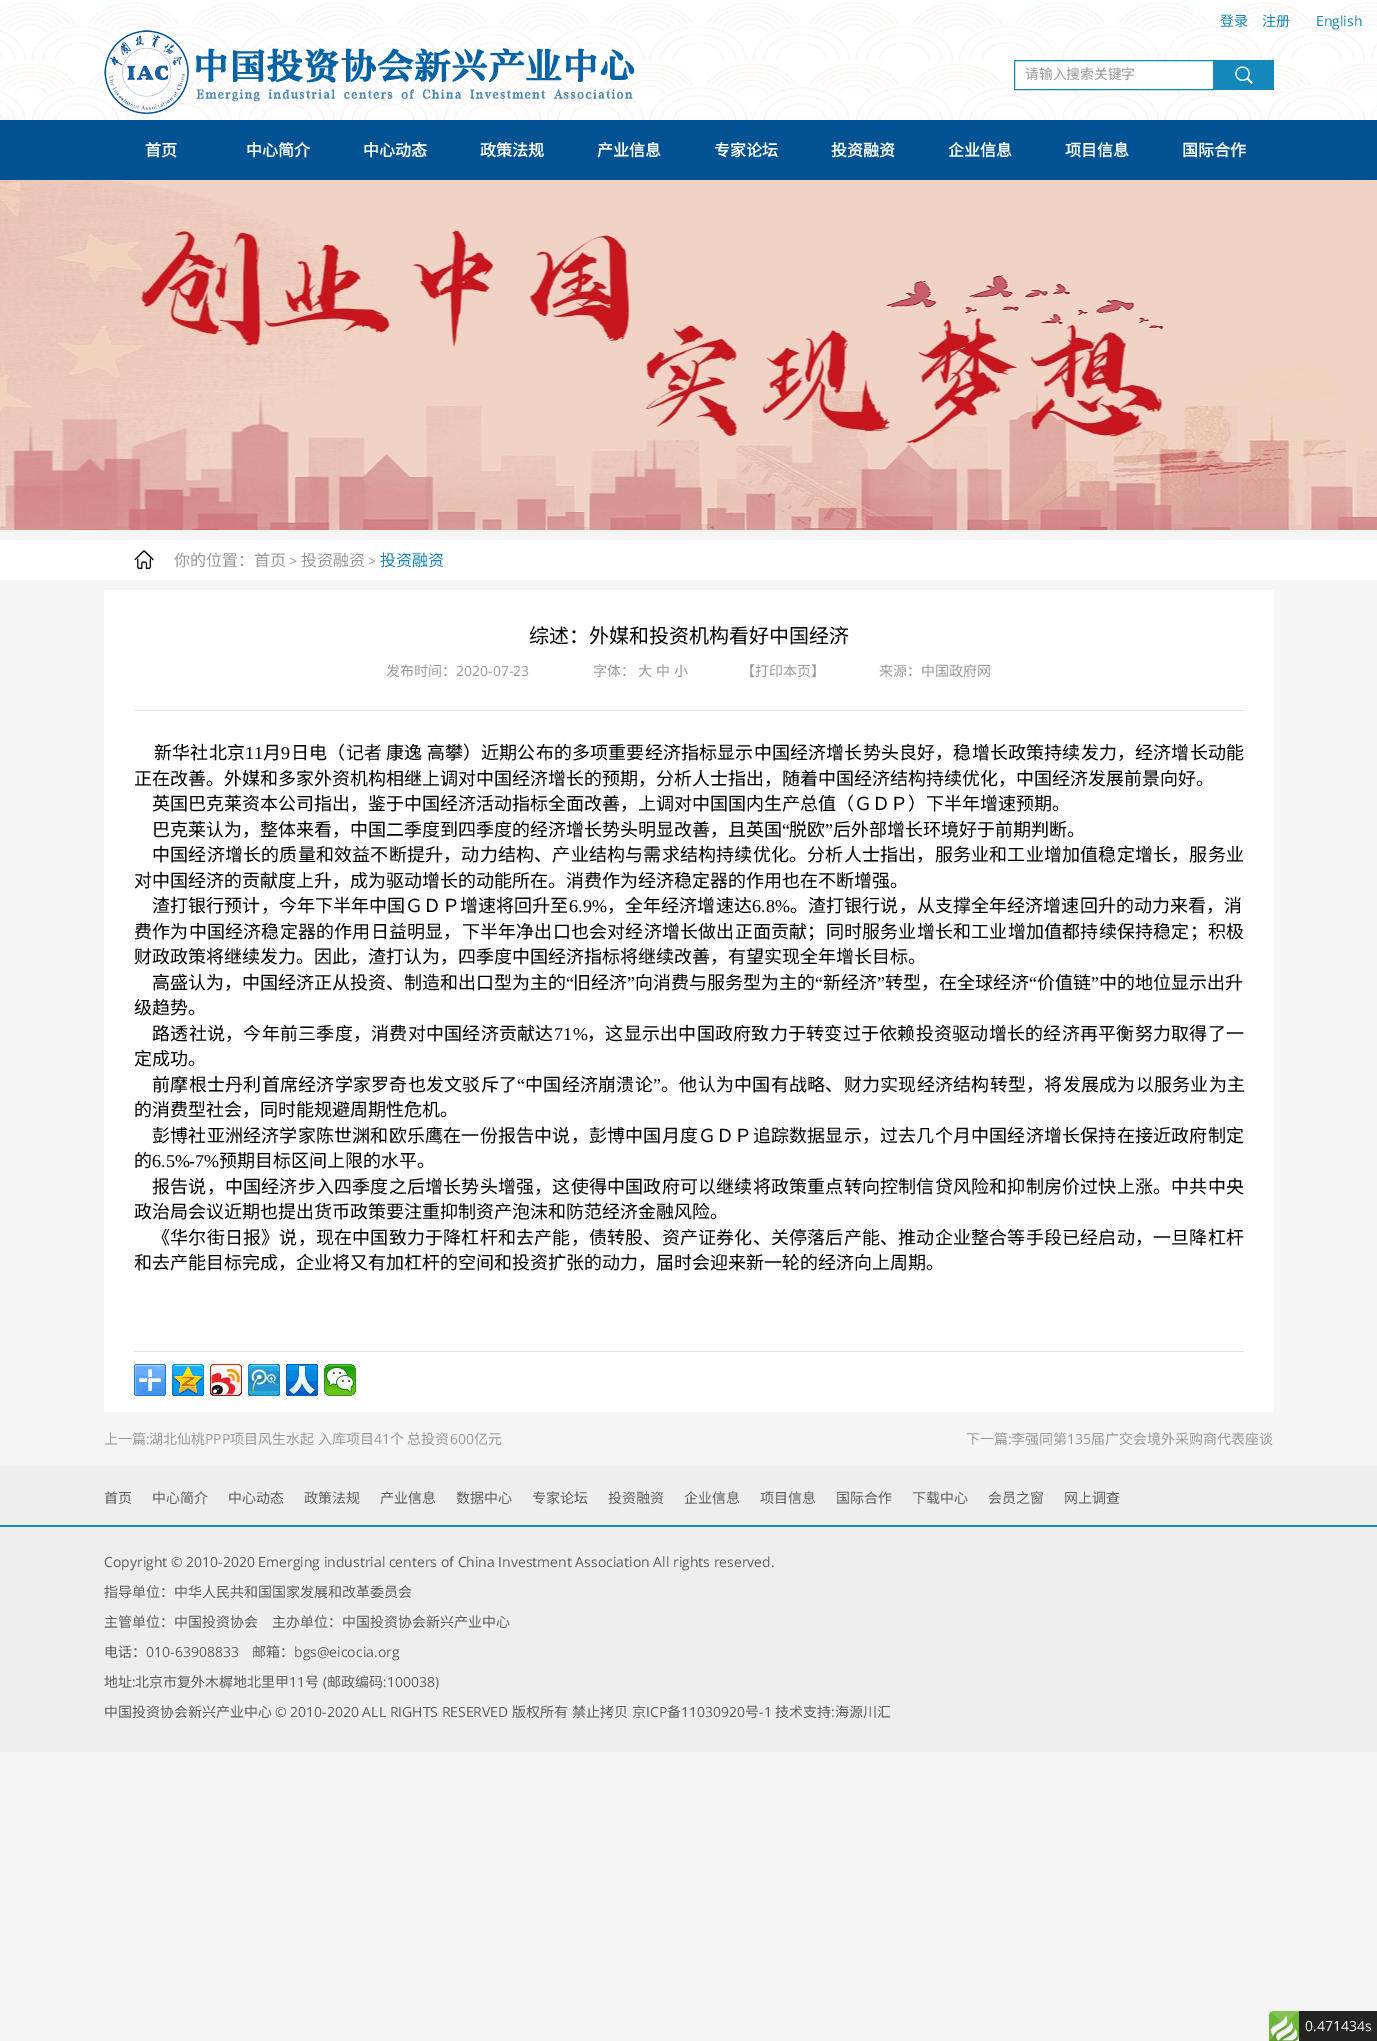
%!PS
<< /PageSize [1377 2041] >> setpagedevice
/m/moveto load def
/C { dup -16 bitshift 255 div exch dup -8 bitshift 255 and 255 div exch 255 and 255 div setrgbcolor } def
/F { [ exch dup neg 0 0 3 -1 roll 0 0 ] selectfont } def
/T { moveto show } def
/R { rectfill } def
/I { 5 dict begin { /h /w /y /x /name } { exch def } forall
  gsave x y translate w h scale
  w h 8 [w 0 0 h 0 0] name (r) file false 3 colorimage grestore end } def
0 2041 translate 1 -1 scale
4 setmiterlimit
16#F5F5F5 C
0 0 1377 2041 R
(1.rgb) 0 0 1377 120 I
/NotoSansCJKSC-Regular 14 F
16#1488BB C
(登录) 1220 26 T
(注册) 1262 26 T
/OpenSans-Regular 14 F
(English) 1316 26 T
(2.rgb) 104 30 85 84 I
(3.rgb) 196 48 439 54 I
16#FFFFFF C
1015 63 198 26 R
16#1488BB C
1014.5 60.5 199 29 rectstroke
/NotoSansCJKSC-Regular 13.75 F
16#999999 C
(请输入搜索关键字) 1025 79 T
16#1488BB C
1214 60 60 30 R
(4.rgb) 1235 66 18 18 I
16#015293 C
0 120 1377 60 R
/NotoSansCJKSC-Bold 16 F
16#FFFFFF C
(首页) 145 156 T
(中心简介) 246 156 T
(中心动态) 363 156 T
(政策法规) 480 156 T
(产业信息) 597 156 T
(专家论坛) 714 156 T
(投资融资) 831 156 T
(企业信息) 948 156 T
(项目信息) 1065 156 T
(国际合作) 1182 156 T
(5.rgb) 0 180 1377 350 I
0 540 1377 40 R
(6.rgb) 134 550 20 19 I
/NotoSansCJKSC-Regular 16 F
16#999999 C
(你的位置：首页) 174 566 T
/OpenSans-Regular 14 F
(>) 289 566 T
/NotoSansCJKSC-Regular 16 F
(投资融资) 301 566 T
/OpenSans-Regular 14 F
(>) 368 566 T
/NotoSansCJKSC-Regular 16 F
16#1488BB C
(投资融资) 380 566 T
16#FFFFFF C
104 590 1170 822 R
/NotoSansCJKSC-Regular 20 F
16#000000 C
(综述：外媒和投资机构看好中国经济) 529 643 T
/NotoSansCJKSC-Regular 14 F
16#999999 C
(发布时间：) 386 676 T
/OpenSans-Regular 14 F
(2020-07-23) 456 676 T
/NotoSansCJKSC-Regular 14 F
(字体：) 593 676 T
(大) 638 676 T
(中) 656 676 T
(小) 674 676 T
(【打印本页】) 741 676 T
(来源：中国政府网) 879 676 T
16#E5E5E5 C
134 710 1110 1 R
/NotoSansCJKSC-Regular 18 F
16#000000 C
154 759 m .17 0 (新华社北京) ashow
/LiberationSerif-Regular 18 F
245 759 m .17 0 (11) ashow
/NotoSansCJKSC-Regular 18 F
263 759 m .17 0 (月) ashow
/LiberationSerif-Regular 18 F
281 759 m .17 0 (9) ashow
/NotoSansCJKSC-Regular 18 F
291 759 m .17 0 (日电（记者 康逸 高攀）近期公布的多项重要经济指标显示中国经济增长势头良好，稳增长政策持续发力，经济增长动能) ashow
(正在改善。外媒和多家外资机构相继上调对中国经济增长的预期，分析人士指出，随着中国经济结构持续优化，中国经济发展前景向好。) 134 785 T
(英国巴克莱资本公司指出，鉴于中国经济活动指标全面改善，上调对中国国内生产总值（ＧＤＰ）下半年增速预期。) 152 810 T
(巴克莱认为，整体来看，中国二季度到四季度的经济增长势头明显改善，且英国) 152 836 T
/LiberationSerif-Regular 18 F
(“) 782 836 T
/NotoSansCJKSC-Regular 18 F
(脱欧) 789 836 T
/LiberationSerif-Regular 18 F
(”) 825 836 T
/NotoSansCJKSC-Regular 18 F
(后外部增长环境好于前期判断。) 833 836 T
152 861 m .2 0 (中国经济增长的质量和效益不断提升，动力结构、产业结构与需求结构持续优化。分析人士指出，服务业和工业增加值稳定增长，服务业) ashow
(对中国经济的贡献度上升，成为驱动增长的动能所在。消费作为经济稳定器的作用也在不断增强。) 134 887 T
152 912 m .1 0 (渣打银行预计，今年下半年中国ＧＤＰ增速将回升至) ashow
/LiberationSerif-Regular 18 F
569 912 m .1 0 (6.9%) ashow
/NotoSansCJKSC-Regular 18 F
607 912 m .1 0 (，全年经济增速达) ashow
/LiberationSerif-Regular 18 F
752 912 m .1 0 (6.8%) ashow
/NotoSansCJKSC-Regular 18 F
790 912 m .1 0 (。渣打银行说，从支撑全年经济增速回升的动力来看，消) ashow
134 938 m .2 0 (费作为中国经济稳定器的作用日益明显，下半年净出口也会对经济增长做出正面贡献；同时服务业增长和工业增加值都持续保持稳定；积极) ashow
(财政政策将继续发力。因此，渣打认为，四季度中国经济指标将继续改善，有望实现全年增长目标。) 134 963 T
(高盛认为，中国经济正从投资、制造和出口型为主的) 152 989 T
/LiberationSerif-Regular 18 F
(“) 566 989 T
/NotoSansCJKSC-Regular 18 F
(旧经济) 573 989 T
/LiberationSerif-Regular 18 F
(”) 627 989 T
/NotoSansCJKSC-Regular 18 F
(向消费与服务型为主的) 635 989 T
/LiberationSerif-Regular 18 F
(“) 815 989 T
/NotoSansCJKSC-Regular 18 F
(新经济) 823 989 T
/LiberationSerif-Regular 18 F
(”) 877 989 T
/NotoSansCJKSC-Regular 18 F
(转型，在全球经济) 885 989 T
/LiberationSerif-Regular 18 F
(“) 1029 989 T
/NotoSansCJKSC-Regular 18 F
(价值链) 1037 989 T
/LiberationSerif-Regular 18 F
(”) 1091 989 T
/NotoSansCJKSC-Regular 18 F
(中的地位显示出升) 1099 989 T
(级趋势。) 134 1014 T
152 1040 m .25 0 (路透社说，今年前三季度，消费对中国经济贡献达) ashow
/LiberationSerif-Regular 18 F
554 1040 m .25 0 (71%) ashow
/NotoSansCJKSC-Regular 18 F
587 1040 m .25 0 (，这显示出中国政府致力于转变过于依赖投资驱动增长的经济再平衡努力取得了一) ashow
(定成功。) 134 1065 T
152 1091 m .25 0 (前摩根士丹利首席经济学家罗奇也发文驳斥了) ashow
/LiberationSerif-Regular 18 F
517 1091 m .25 0 (“) ashow
/NotoSansCJKSC-Regular 18 F
525 1091 m .25 0 (中国经济崩溃论) ashow
/LiberationSerif-Regular 18 F
653 1091 m .25 0 (”) ashow
/NotoSansCJKSC-Regular 18 F
661 1091 m .25 0 (。他认为中国有战略、财力实现经济结构转型，将发展成为以服务业为主) ashow
(的消费型社会，同时能规避周期性危机。) 134 1116 T
152 1142 m .2 0 (彭博社亚洲经济学家陈世渊和欧乐鹰在一份报告中说，彭博中国月度ＧＤＰ追踪数据显示，过去几个月中国经济增长保持在接近政府制定) ashow
(的) 134 1167 T
/LiberationSerif-Regular 18 F
(6.5%-7%) 152 1167 T
/NotoSansCJKSC-Regular 18 F
(预期目标区间上限的水平。) 219 1167 T
152 1193 m .2 0 (报告说，中国经济步入四季度之后增长势头增强，这使得中国政府可以继续将政策重点转向控制信贷风险和抑制房价过快上涨。中共中央) ashow
(政治局会议近期也提出货币政策要注重抑制资产泡沫和防范经济金融风险。) 134 1218 T
152 1244 m .2 0 (《华尔街日报》说，现在中国致力于降杠杆和去产能，债转股、资产证券化、关停落后产能、推动企业整合等手段已经启动，一旦降杠杆) ashow
(和去产能目标完成，企业将又有加杠杆的空间和投资扩张的动力，届时会迎来新一轮的经济向上周期。) 134 1269 T
16#E5E5E5 C
134 1351 1110 1 R
(7.rgb) 134 1364 32 32 I
(8.rgb) 172 1364 32 32 I
(9.rgb) 210 1364 32 32 I
(10.rgb) 248 1364 32 32 I
(11.rgb) 286 1364 32 32 I
(12.rgb) 324 1364 32 32 I
/NotoSansCJKSC-Regular 14 F
16#999999 C
(上一篇) 104 1444 T
/OpenSans-Regular 14 F
(:) 146 1444 T
/NotoSansCJKSC-Regular 14 F
(湖北仙桃) 149 1444 T
/OpenSans-Regular 14 F
(PPP) 205 1444 T
/NotoSansCJKSC-Regular 14 F
(项目风生水起) 230 1444 T
(入库项目) 318 1444 T
/OpenSans-Regular 14 F
(41) 374 1444 T
/NotoSansCJKSC-Regular 14 F
(个 总投资) 390 1444 T
/OpenSans-Regular 14 F
(600) 450 1444 T
/NotoSansCJKSC-Regular 14 F
(亿元) 474 1444 T
(下一篇) 966 1444 T
/OpenSans-Regular 14 F
(:) 1008 1444 T
/NotoSansCJKSC-Regular 14 F
(李强同第) 1011 1444 T
/OpenSans-Regular 14 F
(135) 1067 1444 T
/NotoSansCJKSC-Regular 14 F
(届广交会境外采购商代表座谈) 1091 1444 T
16#EEEEEE C
0 1466 1377 286 R
16#5C5E5B C
(首页) 104 1503 T
(中心简介) 152 1503 T
(中心动态) 228 1503 T
(政策法规) 304 1503 T
(产业信息) 380 1503 T
(数据中心) 456 1503 T
(专家论坛) 532 1503 T
(投资融资) 608 1503 T
(企业信息) 684 1503 T
(项目信息) 760 1503 T
(国际合作) 836 1503 T
(下载中心) 912 1503 T
(会员之窗) 988 1503 T
(网上调查) 1064 1503 T
16#1488BB C
0 1525 1377 2 R
/OpenSans-Regular 14 F
16#5C5E5B C
(Copyright © 2010-2020 Emerging industrial centers of China Investment Association All rights reserved.) 104 1567 T
/NotoSansCJKSC-Regular 14 F
(指导单位：中华人民共和国国家发展和改革委员会) 104 1597 T
(主管单位：中国投资协会　主办单位：中国投资协会新兴产业中心) 104 1627 T
(电话：) 104 1657 T
/OpenSans-Regular 14 F
(010-63908833) 146 1657 T
/NotoSansCJKSC-Regular 14 F
(邮箱：) 252 1657 T
/OpenSans-Regular 14 F
(bgs@eicocia.org) 294 1657 T
/NotoSansCJKSC-Regular 14 F
(地址) 104 1687 T
/OpenSans-Regular 14 F
(:) 132 1687 T
/NotoSansCJKSC-Regular 14 F
(北京市复外木樨地北里甲) 135 1687 T
/OpenSans-Regular 14 F
(11) 289 1687 T
/NotoSansCJKSC-Regular 14 F
(号) 305 1687 T
/OpenSans-Regular 14 F
(\() 323 1687 T
/NotoSansCJKSC-Regular 14 F
(邮政编码) 327 1687 T
/OpenSans-Regular 14 F
(:100038\)) 383 1687 T
/NotoSansCJKSC-Regular 14 F
(中国投资协会新兴产业中心) 104 1717 T
/OpenSans-Regular 14 F
(© 2010-2020 ALL RIGHTS RESERVED) 275 1717 T
/NotoSansCJKSC-Regular 14 F
(版权所有) 512 1717 T
(禁止拷贝) 572 1717 T
(京) 632 1717 T
/OpenSans-Regular 14 F
(ICP) 646 1717 T
/NotoSansCJKSC-Regular 14 F
(备) 667 1717 T
/OpenSans-Regular 14 F
(11030920) 681 1717 T
/NotoSansCJKSC-Regular 14 F
(号) 745 1717 T
/OpenSans-Regular 14 F
(-1) 759 1717 T
/NotoSansCJKSC-Regular 14 F
(技术支持) 775 1717 T
/OpenSans-Regular 14 F
(:) 831 1717 T
/NotoSansCJKSC-Regular 14 F
(海源川汇) 835 1717 T
(13.rgb) 1269 2011 30 30 I
16#232323 C
1299 2011 78 30 R
/OpenSans-Regular 14 F
16#FFFFFF C
(0.471434s) 1305 2031 T
showpage
